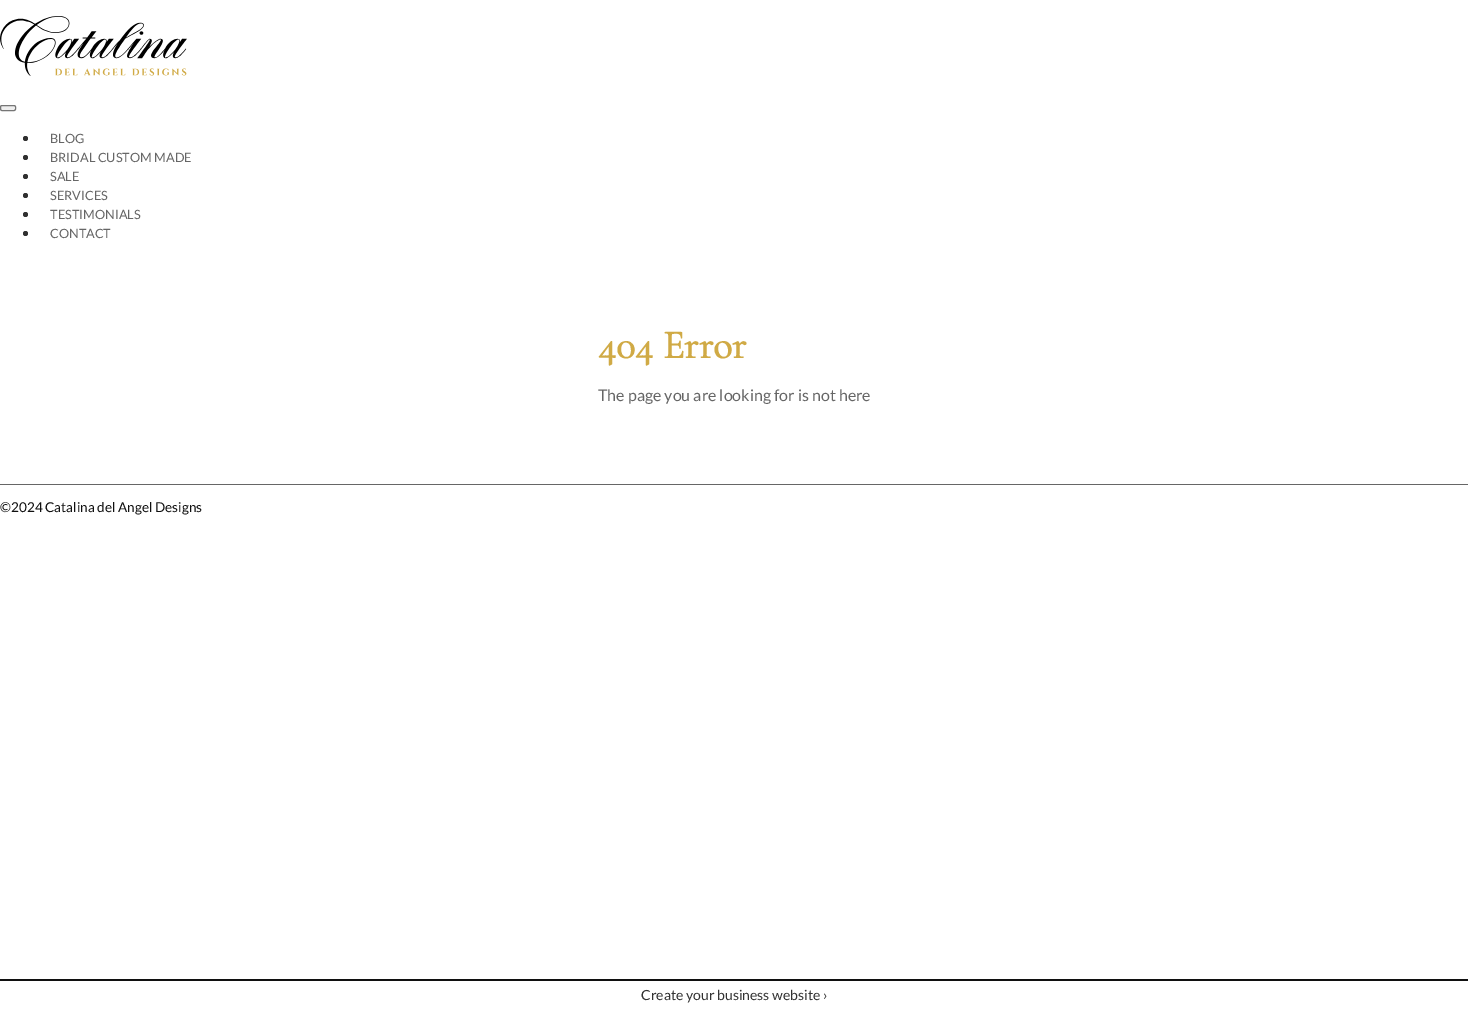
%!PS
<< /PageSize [1468 1009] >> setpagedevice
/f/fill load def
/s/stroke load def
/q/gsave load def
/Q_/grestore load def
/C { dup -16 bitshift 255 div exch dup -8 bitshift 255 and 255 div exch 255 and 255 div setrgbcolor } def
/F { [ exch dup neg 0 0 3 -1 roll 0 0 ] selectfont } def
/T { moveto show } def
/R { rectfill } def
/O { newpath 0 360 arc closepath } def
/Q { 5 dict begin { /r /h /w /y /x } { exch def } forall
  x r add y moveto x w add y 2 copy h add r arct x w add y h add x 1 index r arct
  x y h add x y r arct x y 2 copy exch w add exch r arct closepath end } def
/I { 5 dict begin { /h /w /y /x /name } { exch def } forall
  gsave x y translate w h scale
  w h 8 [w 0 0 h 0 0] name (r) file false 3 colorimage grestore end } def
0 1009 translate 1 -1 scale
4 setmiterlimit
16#FFFFFF C
0 0 1468 1009 R
(1.rgb) 0 16 187 60 I
16#EFEFEF C
.5 105.5 15 5 1.5 Q q f Q_
16#767676 C
s
16#303030 C
25.5 138.5 2.5 O f
/Lato-Regular 12.75 F
16#666666 C
(BLOG) 50 143 T
16#303030 C
25.5 157.5 2.5 O f
16#666666 C
(BRIDAL CUSTOM MADE) 50 162 T
16#303030 C
25.5 176.5 2.5 O f
16#666666 C
(SALE) 50 181 T
16#303030 C
25.5 195.5 2.5 O f
16#666666 C
(SERVICES) 50 200 T
16#303030 C
25.5 214.5 2.5 O f
16#666666 C
(TESTIMONIALS) 50 219 T
16#303030 C
25.5 233.5 2.5 O f
16#666666 C
(CONTACT) 50 238 T
/Cormorant-Bold 40 F
16#D0AA45 C
(404 Error) 598 358 T
/Lato-Regular 16 F
16#666666 C
(The page you are looking for is not here) 598 401 T
0 484 1468 1 R
/Lato-Regular 13.6 F
16#101010 C
(©2024 Catalina del Angel Designs) 0 512 T
0 979 1468 2 R
/Lato-Regular 14 F
16#333333 C
(Create your business website ›) 641 1000 T
showpage
